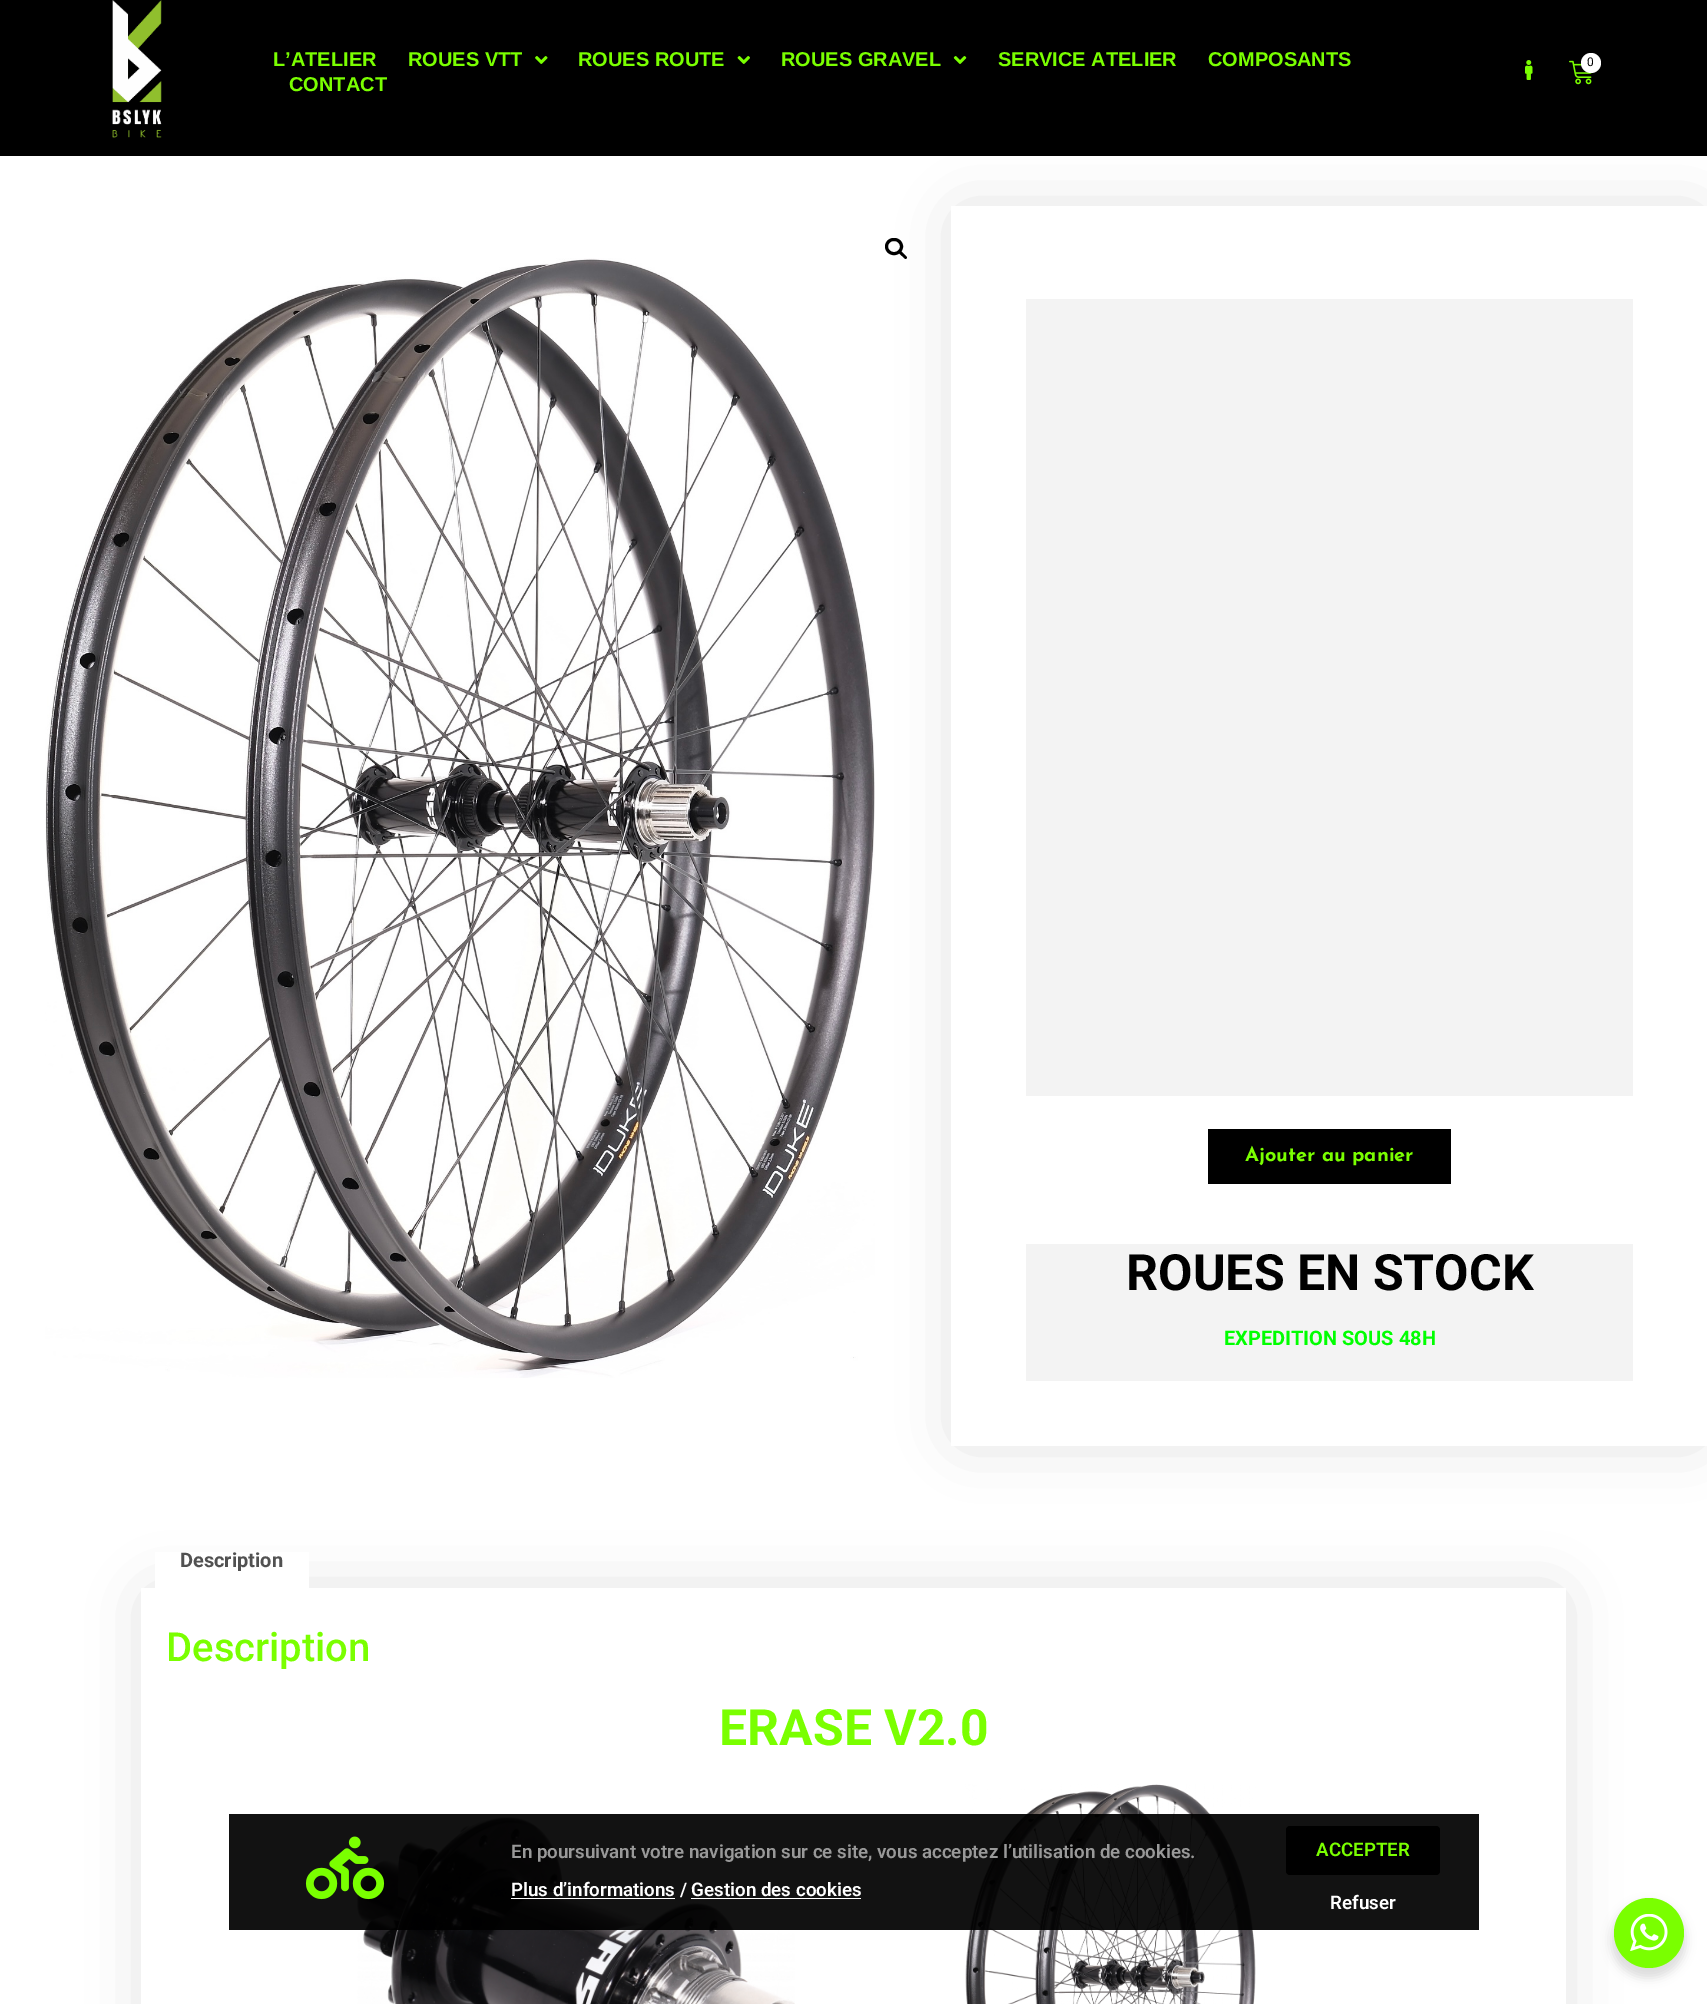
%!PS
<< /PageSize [1707 2004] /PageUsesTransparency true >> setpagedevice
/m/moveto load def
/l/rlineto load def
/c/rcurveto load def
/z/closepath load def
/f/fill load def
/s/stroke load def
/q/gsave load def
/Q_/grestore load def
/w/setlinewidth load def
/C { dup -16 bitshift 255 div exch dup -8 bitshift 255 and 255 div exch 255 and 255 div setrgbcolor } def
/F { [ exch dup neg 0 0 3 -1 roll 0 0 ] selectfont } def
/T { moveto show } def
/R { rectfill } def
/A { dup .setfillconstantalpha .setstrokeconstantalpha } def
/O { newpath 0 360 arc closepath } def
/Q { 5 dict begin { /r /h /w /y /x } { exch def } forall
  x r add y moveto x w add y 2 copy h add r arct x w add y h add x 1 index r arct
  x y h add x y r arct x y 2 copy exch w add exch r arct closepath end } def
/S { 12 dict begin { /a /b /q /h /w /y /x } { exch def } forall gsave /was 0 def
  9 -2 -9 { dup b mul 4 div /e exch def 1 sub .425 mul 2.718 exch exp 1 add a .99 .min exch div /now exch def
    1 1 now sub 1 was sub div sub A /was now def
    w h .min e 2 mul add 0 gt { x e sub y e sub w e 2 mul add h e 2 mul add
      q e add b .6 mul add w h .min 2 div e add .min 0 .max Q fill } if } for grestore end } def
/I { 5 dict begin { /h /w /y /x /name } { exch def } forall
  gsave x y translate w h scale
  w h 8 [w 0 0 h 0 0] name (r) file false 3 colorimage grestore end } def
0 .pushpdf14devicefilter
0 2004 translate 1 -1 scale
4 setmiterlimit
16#FFFFFF C
0 0 1707 2004 R
16#000000 C
0 0 1707 156 R
(1.rgb) 112 0 50 138 I
/LiberationSans-Bold 20 F
16#7AFF00 C
(L’ATELIER) 273 66 T
(ROUES VTT) 408 66 T
(2.rgb) 535 56 13 8 I
(ROUES ROUTE) 578 66 T
(3.rgb) 737 56 13 8 I
(ROUES GRAVEL) 781 66 T
(4.rgb) 953 56 14 8 I
(SERVICE ATELIER) 998 66 T
(COMPOSANTS) 1208 66 T
(CONTACT) 289 91 T
(5.rgb) 1525 60 8 20 I
(6.rgb) 1569 60 24 25 I
16#FFFFFF C
1591 63 10 O f
/Roboto-Regular 12 F
16#000000 C
(0) 1587 66 T
3 w
886.5 239.5 15 14 7 Q s
899.5 251.5 m 1.5 -1.5 3.5 2 4.5 2.5 c .5 1 4 3 2.5 4.5 c -1.5 1.5 -3.5 -2 -4.5 -2.5 c -1 -1 -4 -3 -2.5 -4.5 c z f
(7.rgb) 45 258 830 1120 I
964 219 731 1215 0 31 .17 S
16#FFFFFF C
951 206 756 1240 R
16#F3F3F3 C
1026 299 607 797 R
16#000000 C
1208 1129 243 55 R
/JosefinSans-Bold 20 F
16#7AFF00 C
(Ajouter au panier) 1245 1161 T
16#F3F3F3 C
1026 1244 607 137 R
/Roboto-Bold 50 F
16#000000 C
(ROUES EN STOCK) 1126 1290 T
/Roboto-Bold 20 F
16#00FF00 C
(EXPEDITION SOUS 48H) 1224 1345 T
q
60 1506 m 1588 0 l 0 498 l -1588 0 l z 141 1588 m 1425 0 l 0 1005 l -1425 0 l z eoclip newpath
16#000000 C
154 1600 1400 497 0 31 .17 S
Q_
16#FFFFFF C
155 1552 154 36 R
16#515151 C
(Description) 180 1567 T
/Roboto-Medium 40 F
16#7AFF00 C
(Description) 166 1661 T
/Roboto-Bold 50 F
(ERASE V2.0) 719 1745 T
(8.rgb) 357 1817 438 187 I
(9.rgb) 965 1784 291 220 I
0.93 A
16#000000 C
229 1814 1250 116 R
1 A
(10.rgb) 305 1836 80 64 I
/Roboto-SemiBold 18.75 F
16#999999 C
(En poursuivant votre navigation sur ce site, vous acceptez l’utilisation de cookies.) 511 1858 T
16#FFFFFF C
(Plus d’informations / Gestion des cookies) 511 1896 T
511 1898 164 1 R
691 1898 170 1 R
16#000000 C
1286 1826 154 49 4 Q f
16#7AFF00 C
(ACCEPTER) 1316 1856 T
16#FFFFFF C
(Refuser) 1330 1909 T
16#000000 C
1611 1903 75 75 37.5 5 .14 S
16#7AFF00 C
1649 1933 35 O f
(11.rgb) 1630 1914 38 37 I
.poppdf14devicefilter showpage
